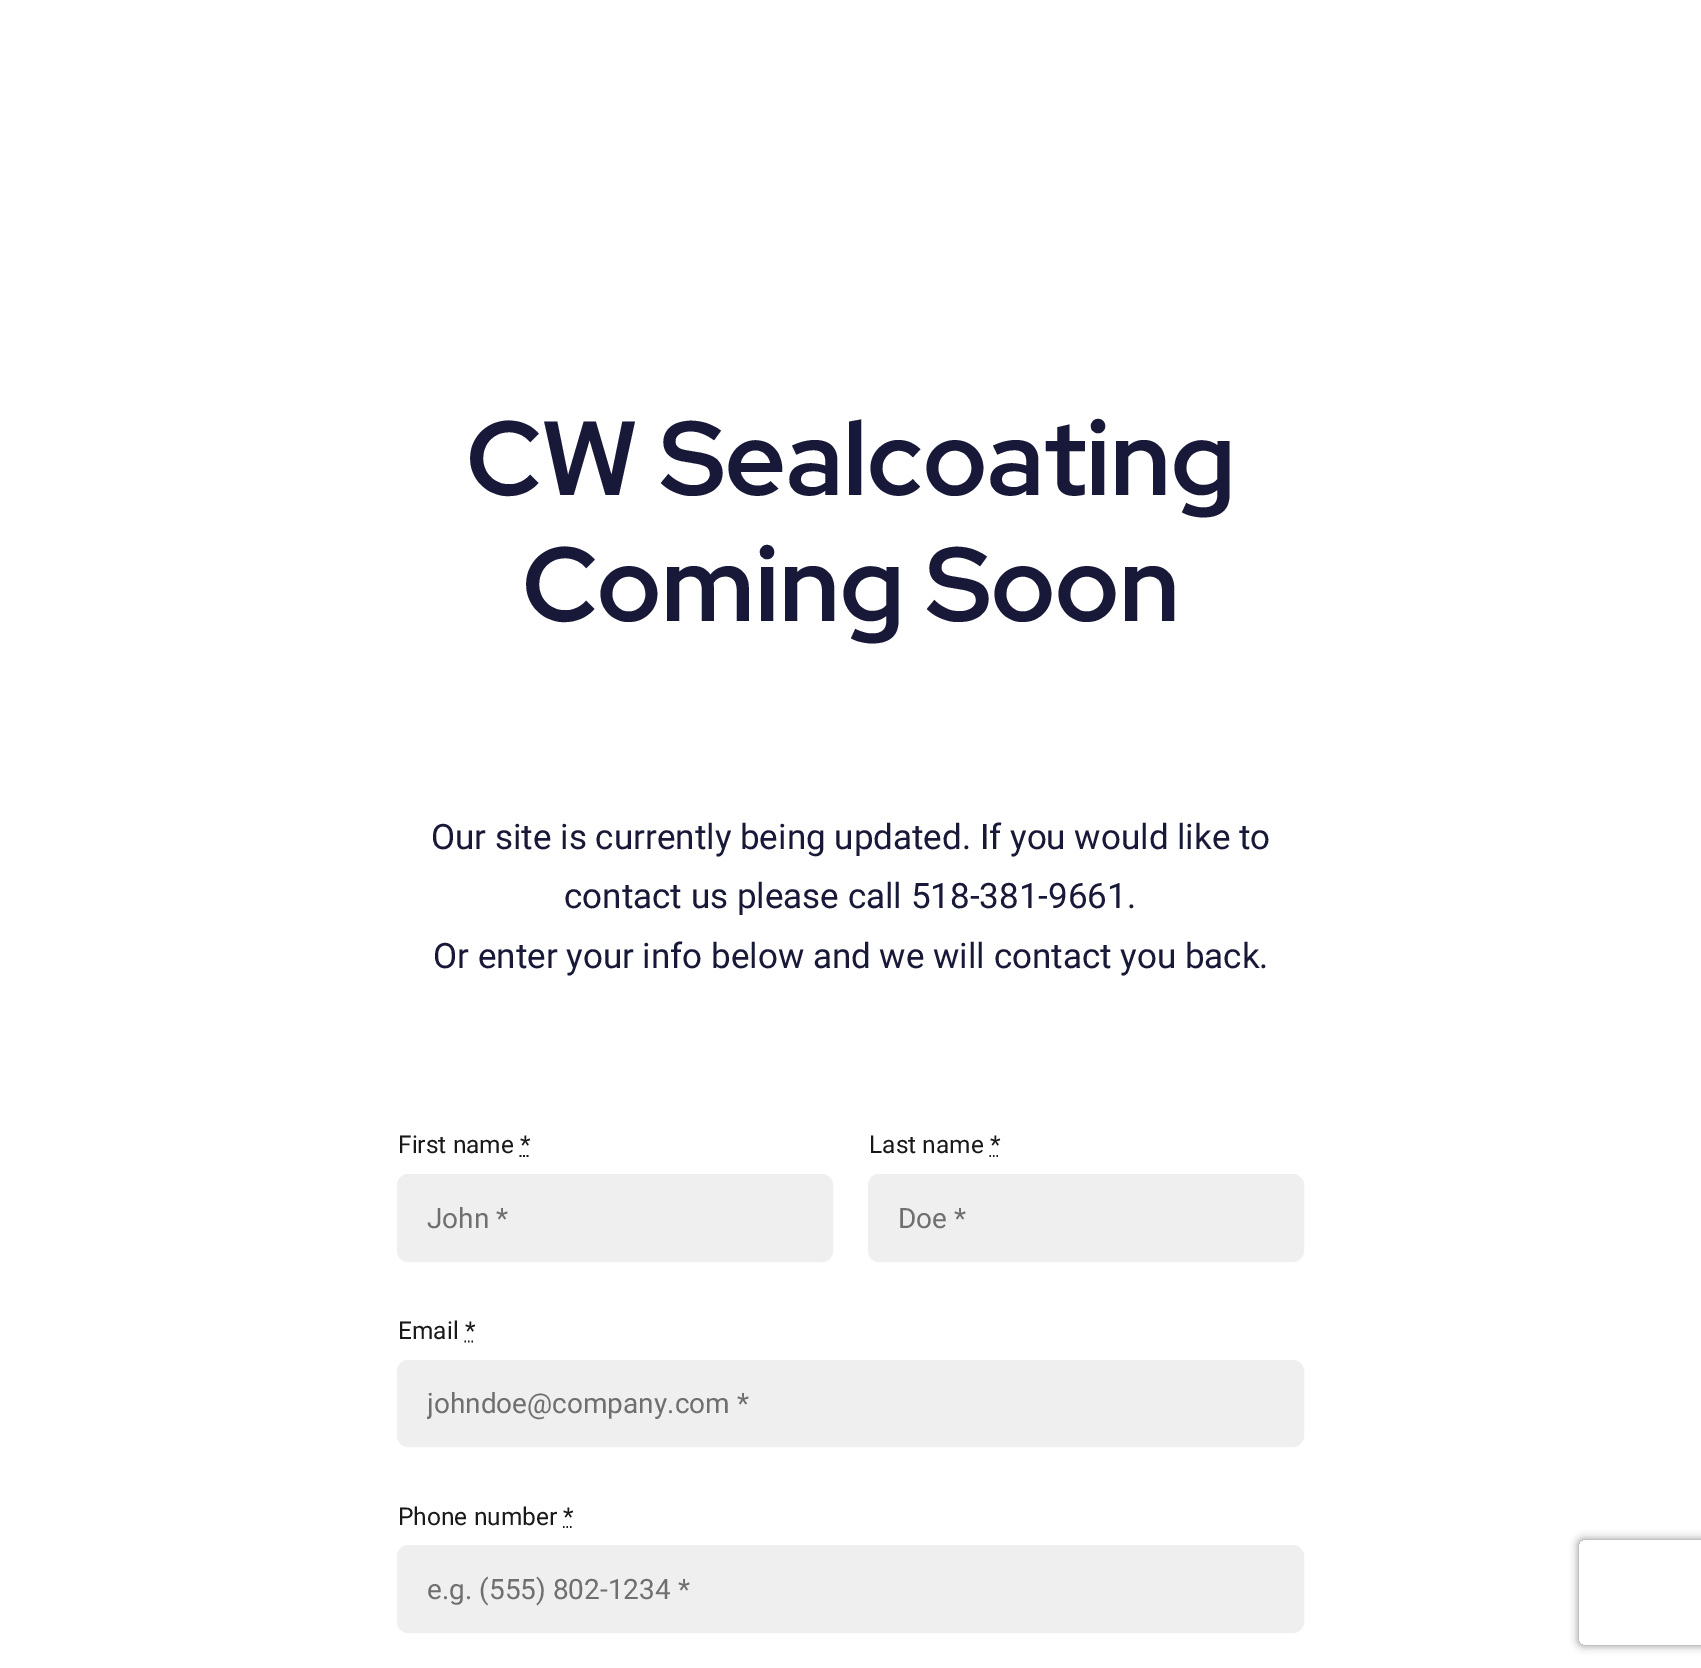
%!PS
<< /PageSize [1701 1668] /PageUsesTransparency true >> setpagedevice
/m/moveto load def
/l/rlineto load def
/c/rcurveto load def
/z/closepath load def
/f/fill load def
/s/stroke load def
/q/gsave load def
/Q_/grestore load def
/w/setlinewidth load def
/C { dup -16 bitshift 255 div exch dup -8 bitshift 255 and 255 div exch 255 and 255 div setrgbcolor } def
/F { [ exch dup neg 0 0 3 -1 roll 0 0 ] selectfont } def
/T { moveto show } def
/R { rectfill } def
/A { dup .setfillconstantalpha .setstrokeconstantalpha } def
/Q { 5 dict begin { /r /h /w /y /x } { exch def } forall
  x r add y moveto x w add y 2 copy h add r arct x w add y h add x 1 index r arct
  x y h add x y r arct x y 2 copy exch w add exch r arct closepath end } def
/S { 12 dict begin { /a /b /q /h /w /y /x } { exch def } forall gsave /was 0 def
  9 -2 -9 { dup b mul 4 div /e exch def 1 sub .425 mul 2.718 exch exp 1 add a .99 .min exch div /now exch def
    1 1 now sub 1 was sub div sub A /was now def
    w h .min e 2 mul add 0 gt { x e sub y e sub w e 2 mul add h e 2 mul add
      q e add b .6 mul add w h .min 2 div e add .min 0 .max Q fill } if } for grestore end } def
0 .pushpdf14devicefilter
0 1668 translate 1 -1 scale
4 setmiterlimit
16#FFFFFF C
0 0 1701 1668 R
/RedHatDisplay-Bold 105 F
16#181838 C
(CW Sealcoating) 466 495 T
(Coming Soon) 522 621 T
/Roboto-Regular 35 F
(Our site is currently being updated. If you would like to) 431 849 T
(contact us please call 518-381-9661.) 564 908 T
(Or enter your info below and we will contact you back.) 433 968 T
/Roboto-Regular 24.5 F
16#191919 C
(First name *) 398 1153 T
1.8 w
519.5 1156 m 2 0 l 523 1156 m 2 0 l 526.5 1156 m 2 0 l 530 1156 m 0 0 l s
16#EFEFEF C
398 1175 434 86 10 Q q f Q_
2 w
s
/Roboto-Regular 28 F
16#6F6F6F C
(John *) 427 1228 T
/Roboto-Regular 24.5 F
16#191919 C
(Last name *) 869 1153 T
1.8 w
989.5 1156 m 1.5 0 l 993 1156 m 1.5 0 l 996.5 1156 m 1.5 0 l 1000 1156 m 0 0 l s
16#EFEFEF C
869 1175 434 86 10 Q q f Q_
2 w
s
/Roboto-Regular 28 F
16#6F6F6F C
(Doe *) 898 1228 T
/Roboto-Regular 24.5 F
16#191919 C
(Email *) 398 1339 T
1.8 w
464.5 1341.5 m 1.5 0 l 468 1341.5 m 1.5 0 l 471.5 1341.5 m 1.5 0 l 475 1341.5 m 0 0 l s
16#EFEFEF C
398 1361 905 85 10 Q q f Q_
2 w
s
q
427 1388 847 33 rectclip
/Roboto-Regular 28 F
16#6F6F6F C
(johndoe@company.com *) 427 1413 T
Q_
16#191919 C
(Phone number *) 398 1525 T
1.8 w
563 1527 m 1.5 0 l 566.5 1527 m 1.5 0 l 570 1527 m 1.5 0 l 573.5 1527 m 0 0 l s
16#EFEFEF C
398 1546 905 86 10 Q q f Q_
2 w
s
/Roboto-Regular 28 F
16#6F6F6F C
(e.g. \(555\) 802-1234 *) 427 1599 T
q
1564 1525 m 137 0 l 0 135 l -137 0 l z 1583 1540 m 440 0 l 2 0 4 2 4 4 c 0 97 l 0 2 -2 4 -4 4 c -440 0 l -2 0 -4 -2 -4 -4 c 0 -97 l 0 -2 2 -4 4 -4 c z eoclip newpath
16#808080 C
1579 1540 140 105 4 4.5 1 S
Q_
.poppdf14devicefilter showpage
